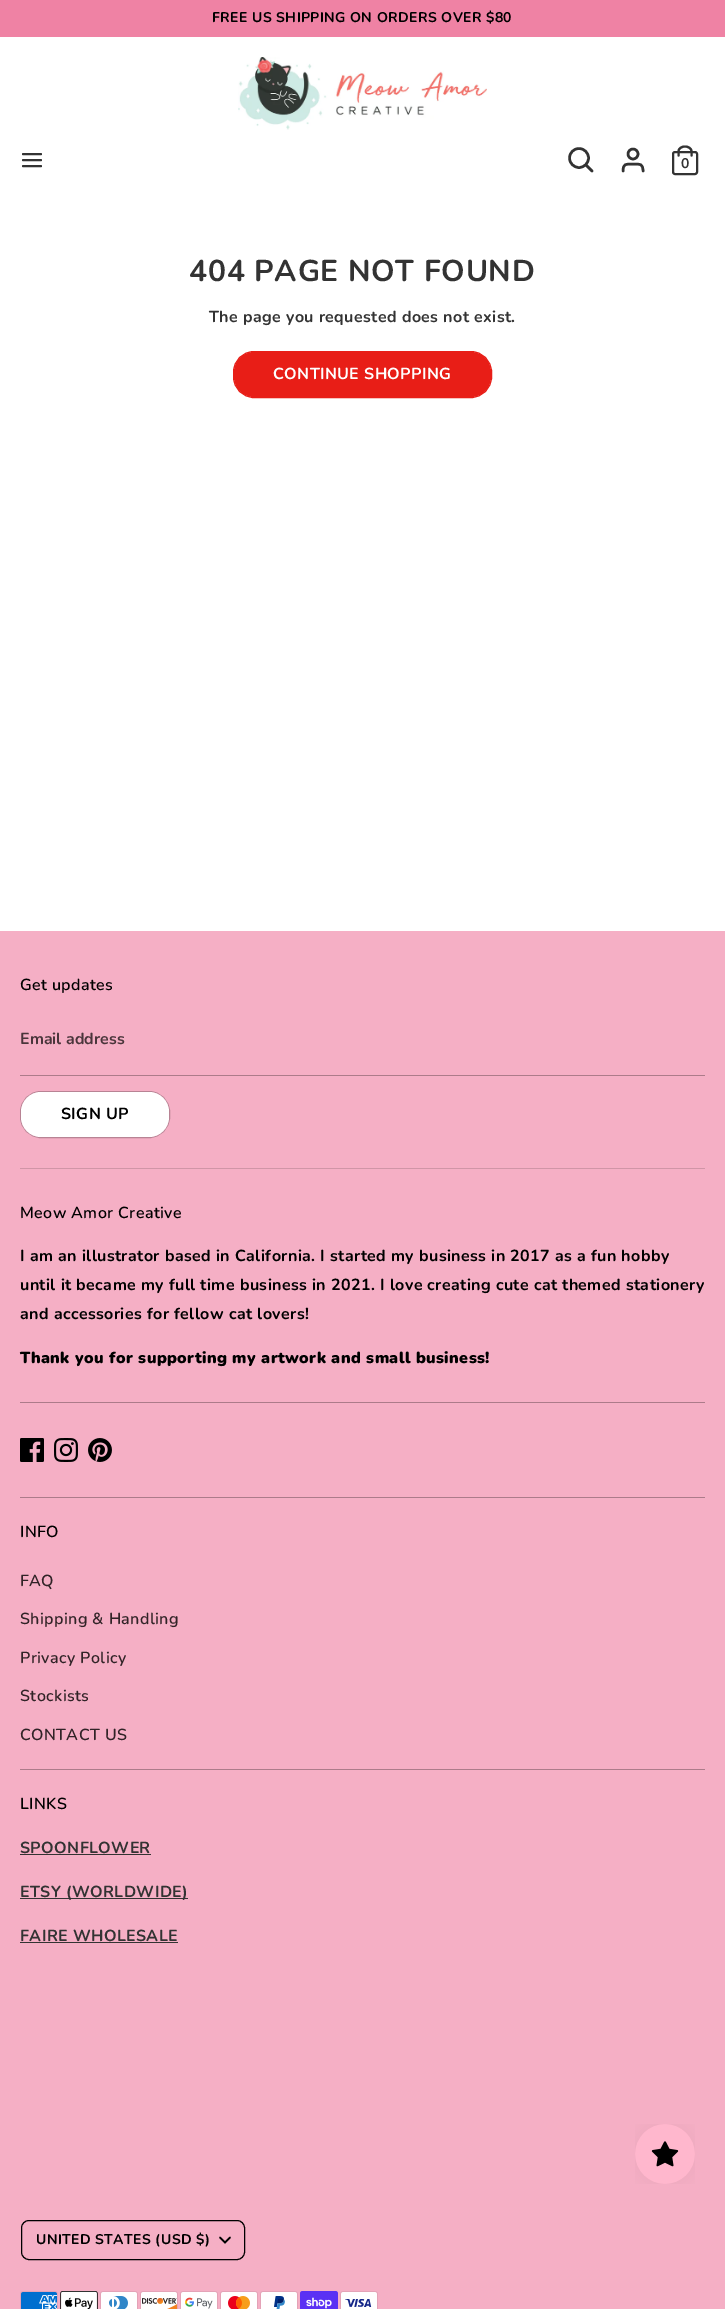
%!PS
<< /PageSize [725 2309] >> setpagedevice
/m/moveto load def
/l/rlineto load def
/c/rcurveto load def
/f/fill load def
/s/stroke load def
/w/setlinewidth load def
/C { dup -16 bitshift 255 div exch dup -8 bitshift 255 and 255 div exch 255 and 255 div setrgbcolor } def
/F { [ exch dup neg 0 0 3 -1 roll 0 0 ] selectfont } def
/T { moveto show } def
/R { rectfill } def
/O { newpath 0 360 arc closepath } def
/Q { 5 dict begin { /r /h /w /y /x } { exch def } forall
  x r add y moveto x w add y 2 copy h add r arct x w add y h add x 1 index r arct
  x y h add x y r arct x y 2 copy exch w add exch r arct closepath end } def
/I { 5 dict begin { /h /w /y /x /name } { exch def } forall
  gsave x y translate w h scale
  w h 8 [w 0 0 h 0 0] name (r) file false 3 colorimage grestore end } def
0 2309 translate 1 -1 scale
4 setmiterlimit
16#FFFFFF C
0 0 725 2309 R
16#EF82A4 C
0 0 725 37 R
/Nunito-Bold 14 F
16#000000 C
212 22 m .4 0 (FREE US SHIPPING ON ORDERS OVER $80) ashow
(1.rgb) 238 57 249 73 I
16#333333 C
2 w
1 setlinecap
23 160 m 18 0 l 23 154 m 18 0 l 23 166 m 18 0 l s
2.5 w
0 setlinecap
579 158 9.5 O s
1 setlinecap
592 171 m -6 -6 l 643 171 m 0 -7.5 -3 -7 -10 -7 c -7 0 -10 -.5 -10 7 c s
0 setlinecap
633 154 5 O s
2 w
673 152 24 22 2 Q s
2.1 w
1 setlinecap
678.5 155.5 m 0 -4 l 0 -3 3 -5 6.5 -5 c 3.5 0 6.5 2 6.5 5 c 0 4 l s
(0) 681 168 T
/Nunito-Bold 30 F
189 281 m .75 0 (404 PAGE NOT FOUND) ashow
/Nunito-Bold 16 F
209 322 m .4 0 (The page you requested does not exist.) ashow
16#E81E17 C
1 w
0 setlinecap
233.5 351.5 258 46 20.5 Q s
234 352 257 45 20 Q f
16#FFFFFF C
273 379 m .4 0 (CONTINUE SHOPPING) ashow
16#F5AFC5 C
0 931 725 1378 R
/Nunito-SemiBold 16 F
16#000000 C
20 990 m .4 0 (Get updates) ashow
16#AC7B8A C
20 1075 685 1 R
/Nunito-Bold 16 F
16#4A353B C
(Email address) 20 1044 T
16#B88394 C
20.5 1091.5 149 46 20.5 Q s
16#FFFFFF C
21 1092 148 45 20 Q f
16#000000 C
61 1119 m .4 0 (SIGN UP) ashow
16#D095A7 C
20 1168 685 1 R
16#AC7B8A C
20 1402 685 1 R
/Nunito-SemiBold 16 F
16#000000 C
20 1218 m .4 0 (Meow Amor Creative) ashow
/Nunito-Bold 16 F
20 1261 m .4 0 (I am an illustrator based in California. I started my business in 2017 as a fun hobby) ashow
20 1290 m .4 0 (until it became my full time business in 2021. I love creating cute cat themed stationery) ashow
20 1319 m .4 0 (and accessories for fellow cat lovers!) ashow
/Nunito-Black 16 F
20 1363 m .4 0 (Thank you for supporting my artwork and small business!) ashow
16#AC7B8A C
20 1497 685 1 R
(2.rgb) 20 1438 24 24 I
(3.rgb) 54 1438 24 24 I
(4.rgb) 88 1438 24 24 I
20 1769 685 1 R
/Nunito-SemiBold 16 F
16#000000 C
20 1537 m .4 0 (INFO) ashow
16#312327 C
20 1586 m .4 0 (FAQ) ashow
20 1624 m .4 0 (Shipping & Handling) ashow
20 1663 m .4 0 (Privacy Policy) ashow
20 1701 m .4 0 (Stockists) ashow
20 1740 m .4 0 (CONTACT US) ashow
16#000000 C
20 1809 m .4 0 (LINKS) ashow
/Nunito-Bold 16 F
16#333333 C
20 1853 m .4 0 (SPOONFLOWER) ashow
20 1854 131 1 R
20 1898 168 1 R
20 1897 m .4 0 (ETSY \(WORLDWIDE\)) ashow
20 1941 m .4 0 (FAIRE WHOLESALE) ashow
20 1942 158 1 R
16#000000 C
21.5 2220.5 223 39 7.5 Q s
/Nunito-Bold 14 F
36 2244 m .4 0 (UNITED STATES \(USD $\)) ashow
1.7 w
1 setlinecap
220 2237.5 m 5 5 l 5 -5 l s
(5.rgb) 20 2291 38 18 I
(6.rgb) 60 2291 38 18 I
(7.rgb) 100 2291 38 18 I
(8.rgb) 140 2291 38 18 I
(9.rgb) 180 2291 38 18 I
(10.rgb) 220 2291 38 18 I
(11.rgb) 260 2291 38 18 I
(12.rgb) 300 2291 38 18 I
(13.rgb) 340 2291 38 18 I
(14.rgb) 635 2124 60 60 I
showpage
